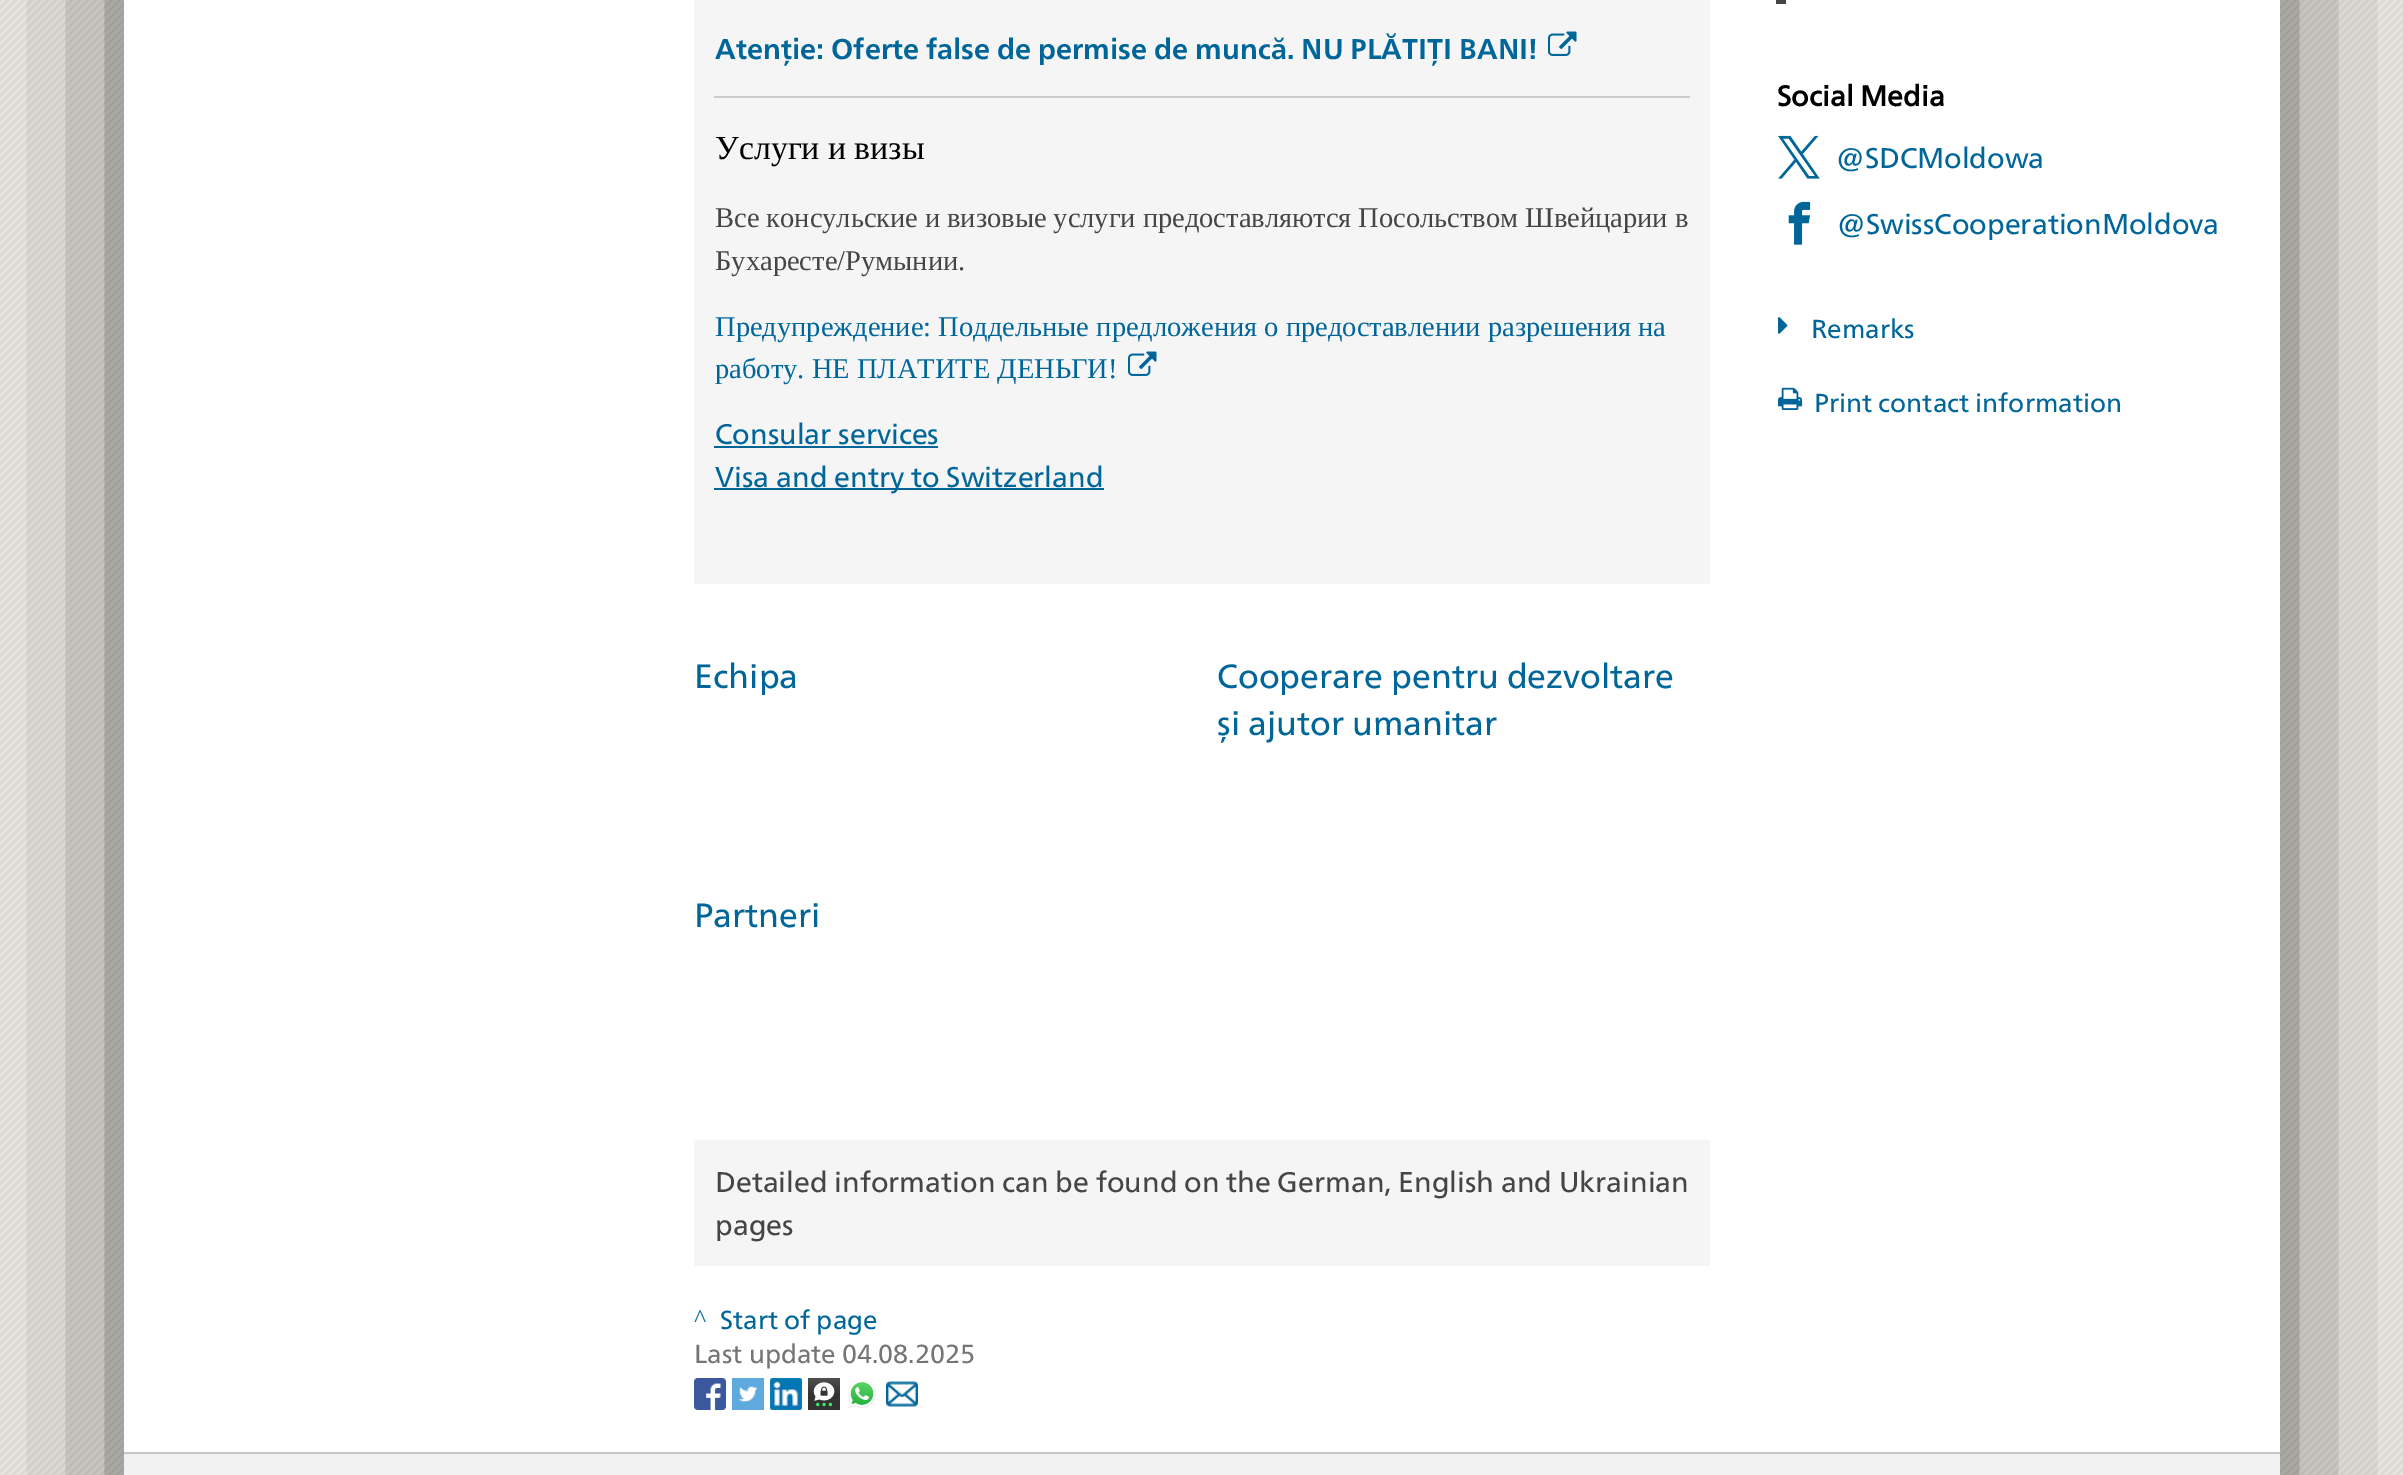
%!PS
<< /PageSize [2403 1475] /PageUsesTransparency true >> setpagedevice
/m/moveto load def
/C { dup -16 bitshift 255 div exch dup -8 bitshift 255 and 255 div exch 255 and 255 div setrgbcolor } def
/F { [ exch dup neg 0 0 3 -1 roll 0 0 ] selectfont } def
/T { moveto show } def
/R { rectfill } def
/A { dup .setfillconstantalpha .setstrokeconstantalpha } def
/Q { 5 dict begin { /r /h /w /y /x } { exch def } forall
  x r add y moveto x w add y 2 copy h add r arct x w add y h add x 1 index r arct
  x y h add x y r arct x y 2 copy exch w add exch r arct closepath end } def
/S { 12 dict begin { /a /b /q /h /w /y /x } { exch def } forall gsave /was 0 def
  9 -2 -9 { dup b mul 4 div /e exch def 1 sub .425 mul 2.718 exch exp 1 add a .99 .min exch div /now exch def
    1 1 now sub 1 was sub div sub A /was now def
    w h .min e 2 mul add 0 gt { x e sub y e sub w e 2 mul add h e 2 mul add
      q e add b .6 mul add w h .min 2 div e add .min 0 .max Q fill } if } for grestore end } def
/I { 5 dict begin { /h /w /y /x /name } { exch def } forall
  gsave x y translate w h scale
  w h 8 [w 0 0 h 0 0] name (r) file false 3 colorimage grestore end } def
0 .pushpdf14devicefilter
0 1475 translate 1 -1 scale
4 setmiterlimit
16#FFFFFF C
0 0 2403 1475 R
(1.rgb) 0 0 2403 1475 I
16#000000 C
124 -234 2156 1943 0 78 .6 S
16#FFFFFF C
124 0 2156 1452 R
16#F5F5F5 C
694 0 1016 584 R
/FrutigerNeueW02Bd-Bold 28.5 F
16#006699 C
(Atenție: Oferte false de permise de muncă. NU PLĂTIȚI BANI!) 715 59 T
(2.rgb) 1548 31 29 25 I
16#CCCCCC C
714 96 976 2 R
/LiberationSerif-Regular 33.75 F
16#000000 C
(Услуги и визы) 715 159 T
/LiberationSerif-Regular 28.5 F
16#454545 C
715 227 m -.25 0 32 (Все консульские и визовые услуги предоставляются Посольством Швейцарии в) widthshow
(Бухаресте/Румынии.) 715 270 T
16#006699 C
(Предупреждение: Поддельные предложения о предоставлении разрешения на) 715 336 T
(работу. НЕ ПЛАТИТЕ ДЕНЬГИ!) 715 378 T
(2.rgb) 1128 351 29 25 I
/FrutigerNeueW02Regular-Regular 28.5 F
(Consular services) 715 444 T
714 446 224 2 R
714 488 390 2 R
(Visa and entry to Switzerland) 715 487 T
/FrutigerNeueW02Regular-Regular 33.75 F
(Echipa) 694 688 T
(Partneri) 694 927 T
(Cooperare pentru dezvoltare) 1217 688 T
(și ajutor umanitar) 1217 735 T
16#F5F5F5 C
694 1140 1016 126 R
/FrutigerNeueW02Regular-Regular 28.5 F
16#454545 C
(Detailed information can be found on the German, English and Ukrainian) 715 1192 T
(pages) 715 1235 T
/LiberationSerif-Regular 26 F
16#006699 C
(^) 694 1327 T
/FrutigerNeueW02Regular-Regular 26 F
(Start of page) 720 1329 T
16#757575 C
(Last update 04.08.2025) 694 1363 T
(3.rgb) 694 1378 32 32 I
(4.rgb) 732 1378 32 32 I
(5.rgb) 770 1378 32 32 I
(6.rgb) 808 1378 32 32 I
(7.rgb) 848 1379 28 29 I
(8.rgb) 886 1381 32 26 I
16#454545 C
1776 0 10 4 R
/FrutigerNeueW02Regular-Bold 28.5 F
16#000000 C
(Social Media) 1777 106 T
(9.rgb) 1778 135 42 44 I
/FrutigerNeueW02Regular-Regular 28.5 F
16#006699 C
(@SDCMoldowa) 1836 168 T
(10.rgb) 1788 201 23 44 I
(@SwissCooperationMoldova) 1837 234 T
(11.rgb) 1778 317 10 17 I
/FrutigerNeueW02Regular-Regular 26 F
(Remarks) 1811 338 T
(12.rgb) 1778 387 25 23 I
(Print contact information) 1814 412 T
16#F2F2F2 C
124 1454 2156 21 R
16#C5C5C5 C
124 1452 2156 2 R
.poppdf14devicefilter showpage
